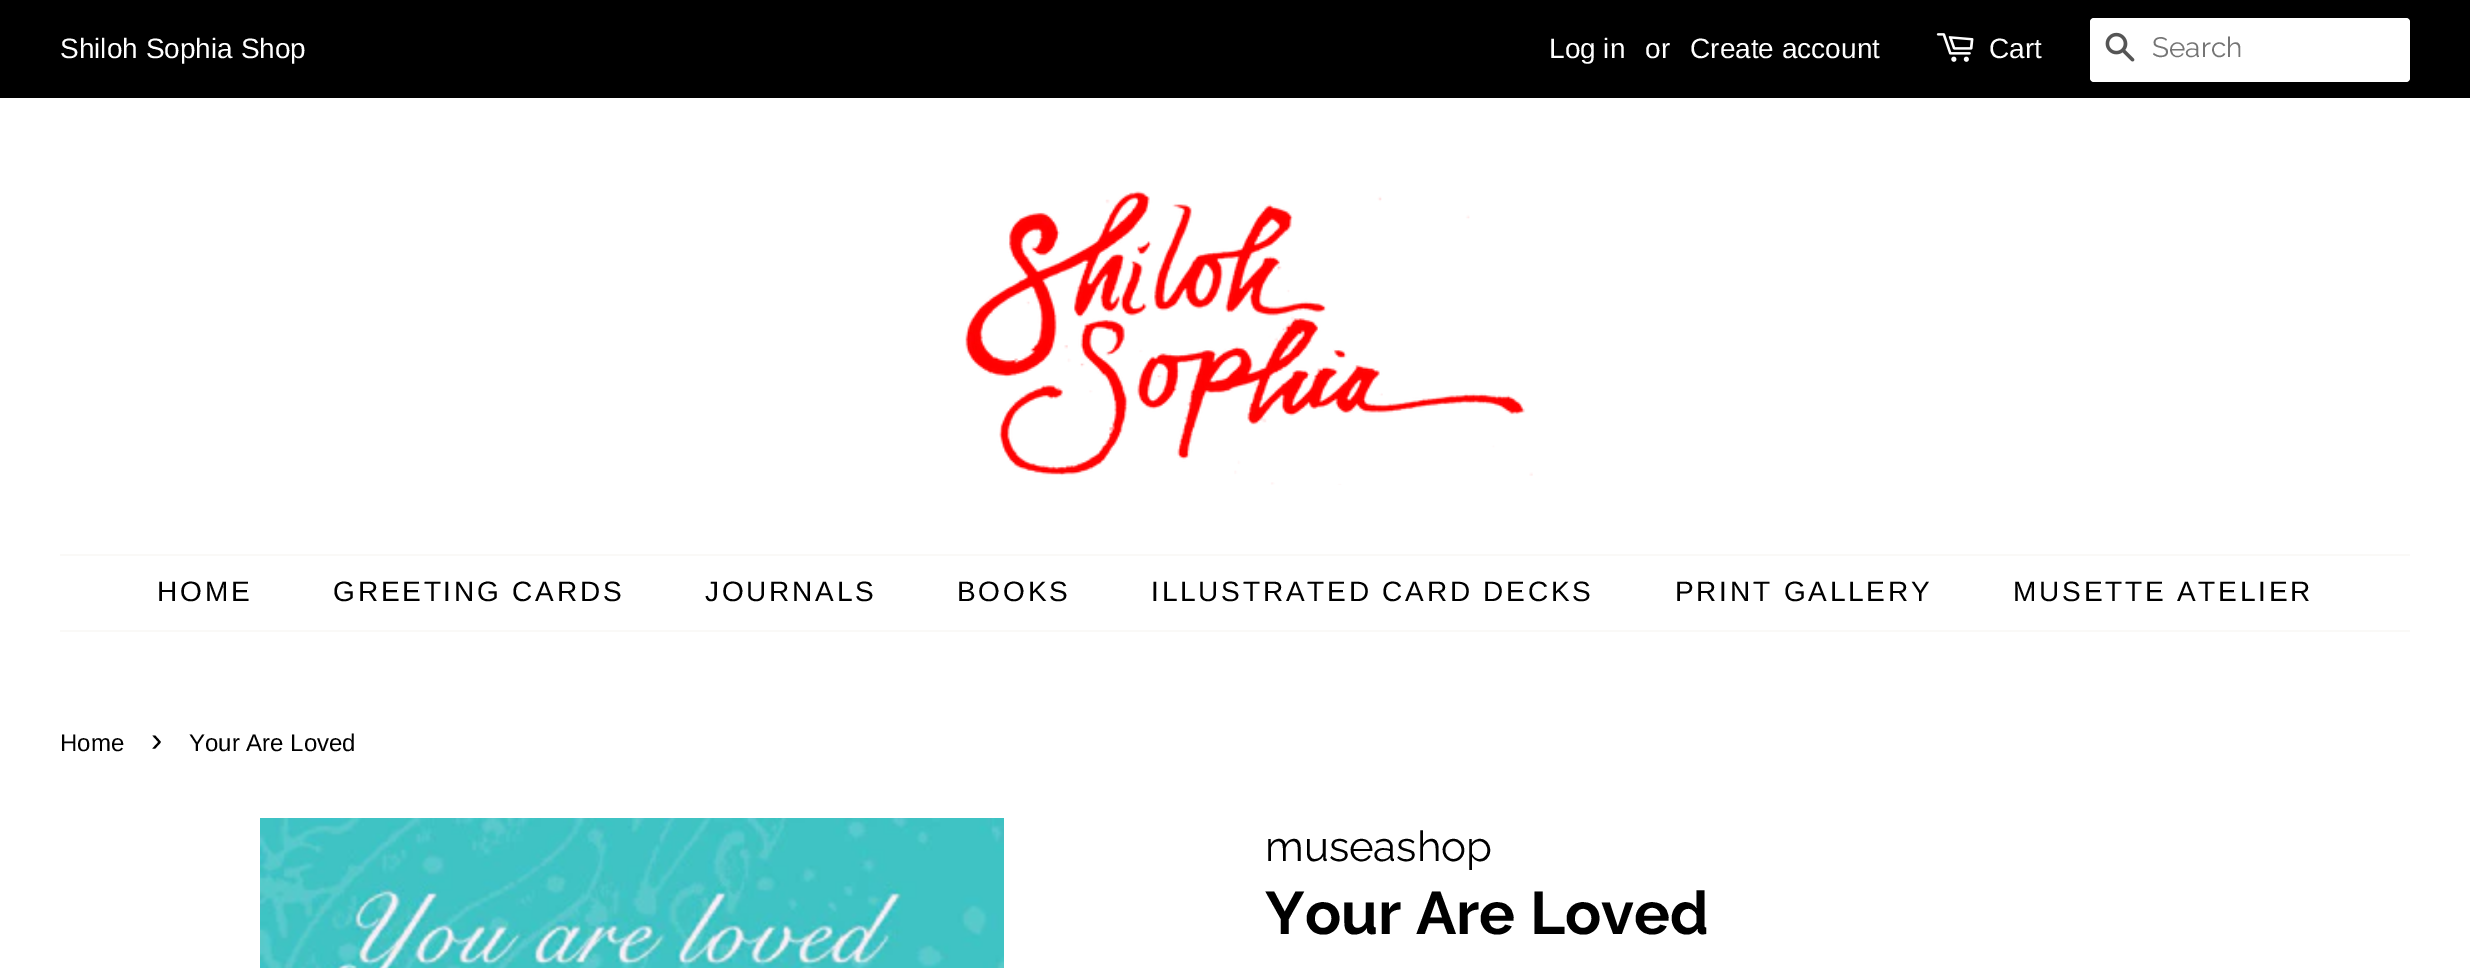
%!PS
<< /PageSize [2470 968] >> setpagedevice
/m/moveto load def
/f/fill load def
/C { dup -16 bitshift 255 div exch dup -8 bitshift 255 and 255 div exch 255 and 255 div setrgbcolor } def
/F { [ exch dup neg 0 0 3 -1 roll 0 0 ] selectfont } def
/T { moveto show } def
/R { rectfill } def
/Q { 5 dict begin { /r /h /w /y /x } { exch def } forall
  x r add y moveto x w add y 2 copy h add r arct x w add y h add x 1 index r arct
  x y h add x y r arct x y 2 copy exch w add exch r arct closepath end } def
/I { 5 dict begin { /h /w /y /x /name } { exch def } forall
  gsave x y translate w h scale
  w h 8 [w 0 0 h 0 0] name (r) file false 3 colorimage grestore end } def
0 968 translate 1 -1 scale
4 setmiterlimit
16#FFFFFF C
0 0 2470 968 R
16#000000 C
0 0 2470 98 R
/LiberationSans-Regular 28 F
16#FFFFFF C
(Shiloh Sophia Shop) 60 58 T
(Log in) 1549 58 T
(or) 1645 58 T
(Create account) 1690 58 T
(1.rgb) 1936 33 38 29 I
(Cart) 1989 58 T
2090 18 320 64 4 Q f
(2.rgb) 2105 32 30 30 I
/Raleway-Regular 28 F
16#757575 C
(Search) 2152 57 T
(3.rgb) 965 191 568 294 I
16#FAF9F7 C
60 554 2350 2 R
60 630 2350 2 R
/LiberationSans-Regular 28 F
16#000000 C
157 601 m 2.8 0 (HOME) ashow
333 601 m 2.8 0 (GREETING CARDS) ashow
705 601 m 2.8 0 (JOURNALS) ashow
957 601 m 2.8 0 (BOOKS) ashow
1151 601 m 2.8 0 (ILLUSTRATED CARD DECKS) ashow
1675 601 m 2.8 0 (PRINT GALLERY) ashow
2013 601 m 2.8 0 (MUSETTE ATELIER) ashow
/LiberationSans-Regular 24 F
(Home) 60 751 T
/LiberationSans-Regular 34 F
(›) 151 751 T
/LiberationSans-Regular 24 F
(Your Are Loved) 189 751 T
(4.rgb) 260 818 744 150 I
/Raleway-Regular 42 F
(museashop) 1265 861 T
/Raleway-Bold 60 F
(Your Are Loved) 1265 934 T
showpage
